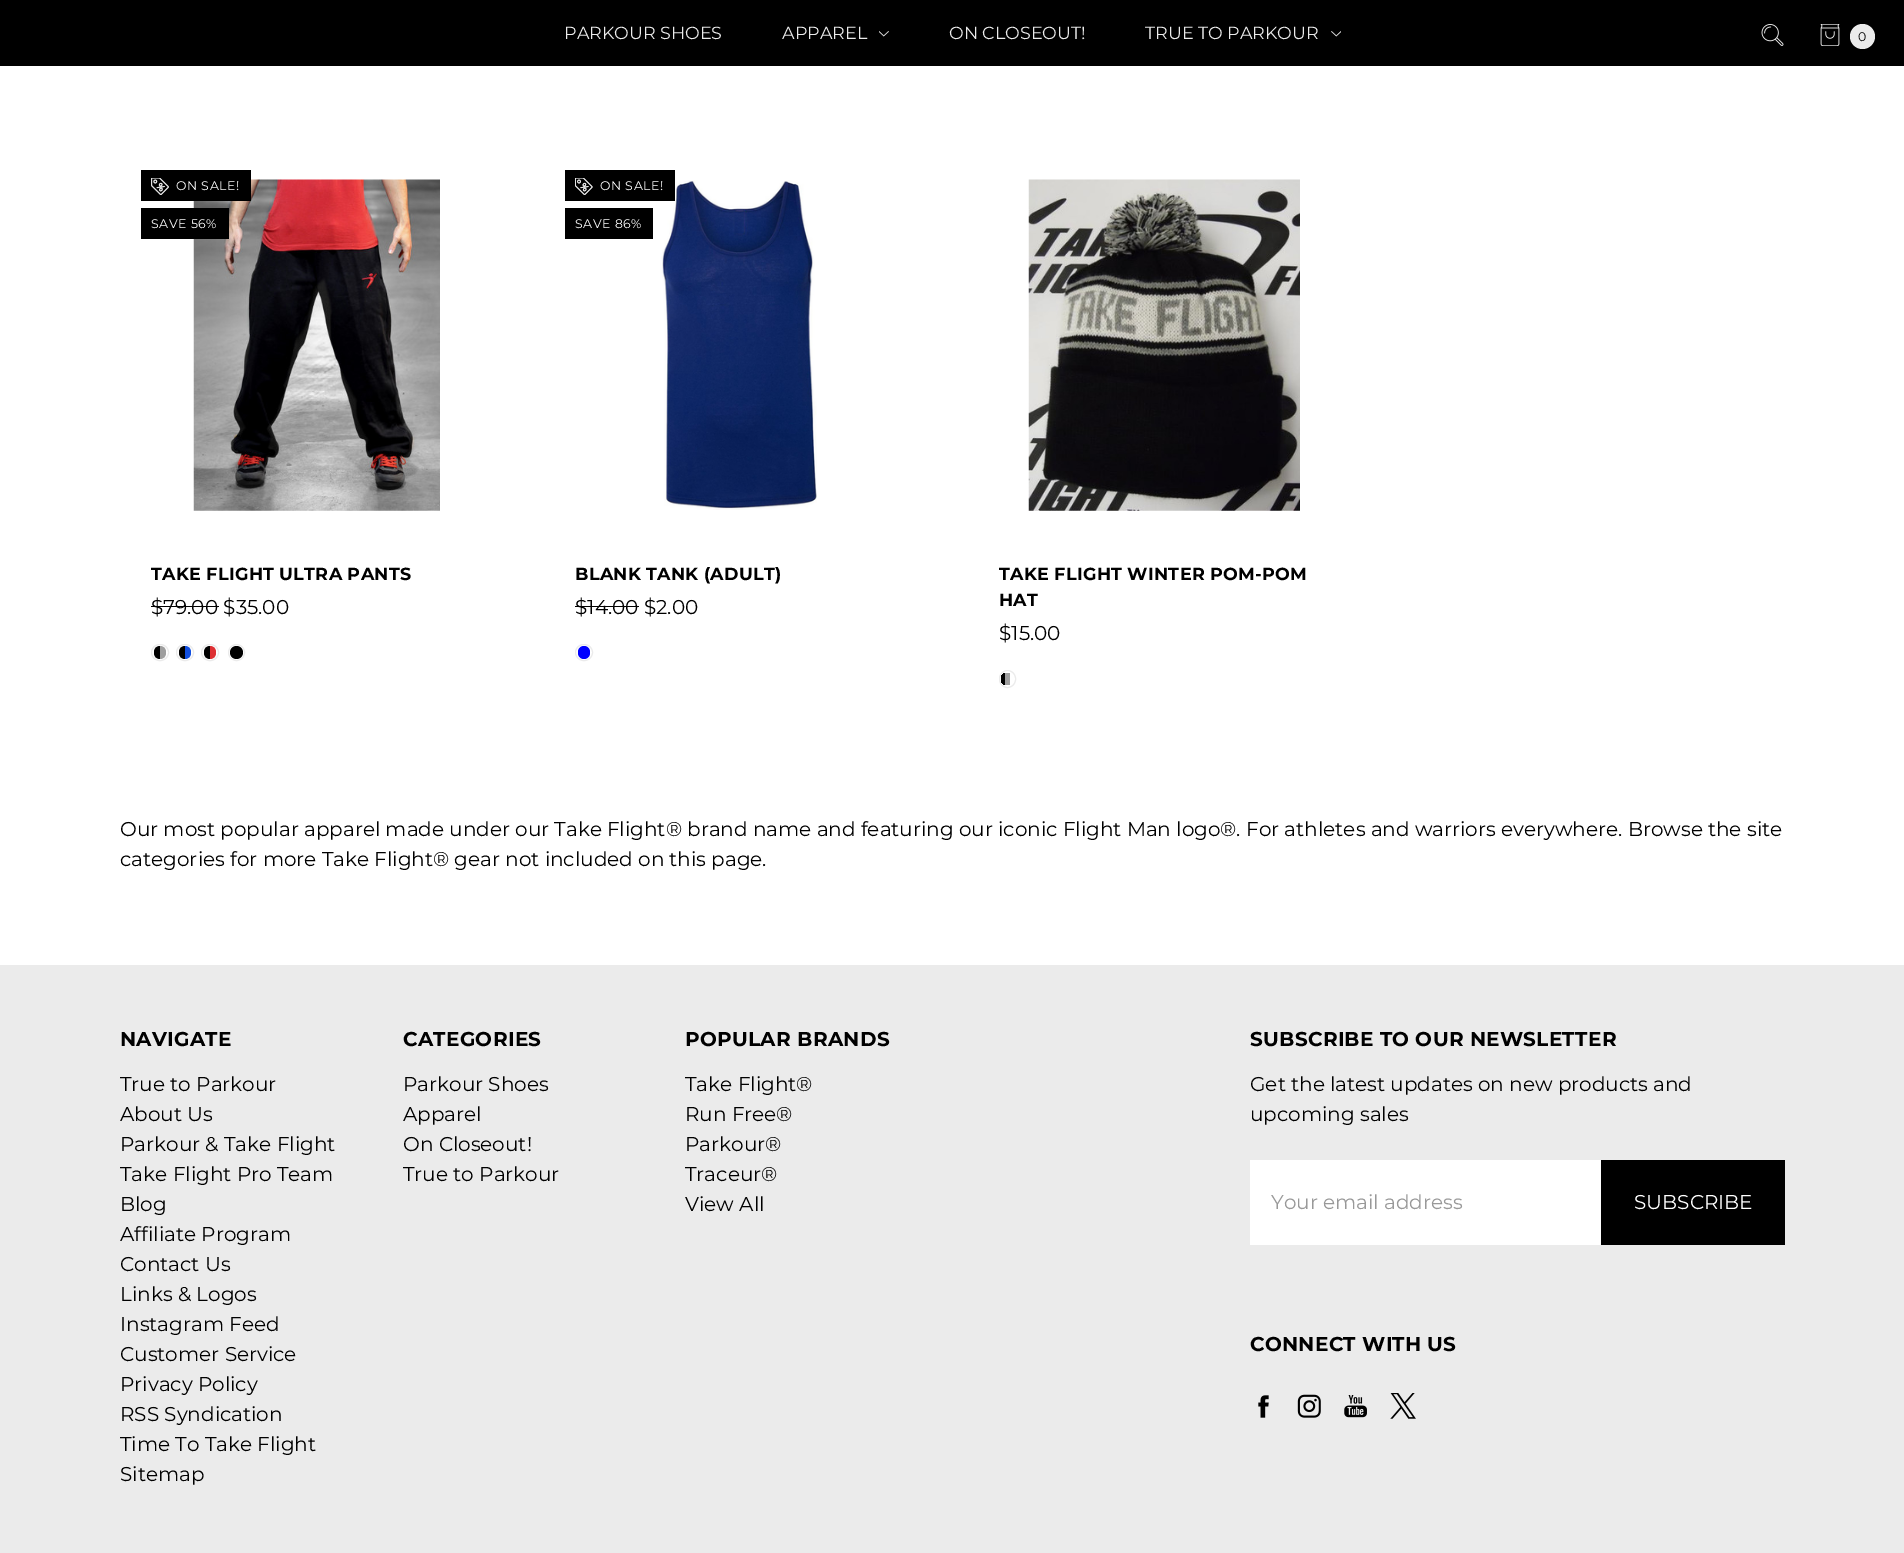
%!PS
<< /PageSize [1904 1553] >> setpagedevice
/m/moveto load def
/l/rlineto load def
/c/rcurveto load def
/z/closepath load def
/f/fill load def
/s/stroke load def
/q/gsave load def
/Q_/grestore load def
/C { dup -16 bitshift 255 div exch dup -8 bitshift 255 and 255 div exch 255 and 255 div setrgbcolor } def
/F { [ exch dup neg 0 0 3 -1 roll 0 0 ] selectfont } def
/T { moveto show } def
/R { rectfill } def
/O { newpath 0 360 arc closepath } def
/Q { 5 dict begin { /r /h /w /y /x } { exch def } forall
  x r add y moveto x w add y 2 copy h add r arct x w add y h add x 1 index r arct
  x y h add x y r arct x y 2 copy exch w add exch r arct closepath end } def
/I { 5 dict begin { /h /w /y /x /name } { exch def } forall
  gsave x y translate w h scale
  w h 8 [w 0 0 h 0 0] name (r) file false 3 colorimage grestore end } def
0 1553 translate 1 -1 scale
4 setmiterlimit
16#FFFFFF C
0 0 1904 1553 R
16#000000 C
0 0 1904 66 R
/Montserrat-Regular 17.5 F
16#EBEBEB C
(PARKOUR SHOES) 564 39 T
(APPAREL) 782 39 T
(1.rgb) 879 31 10 6 I
(ON CLOSEOUT!) 949 39 T
(TRUE TO PARKOUR) 1145 39 T
(2.rgb) 1331 31 10 6 I
(3.rgb) 1761 24 23 22 I
(4.rgb) 1820 24 20 22 I
1862.5 36.5 12.5 O f
/Montserrat-Regular 12.5 F
16#000000 C
(0) 1858 41 T
(5.rgb) 193 179 247 332 I
141 170 110 31 R
(6.rgb) 151 178 18 17 I
16#FFFFFF C
176 190 m .5 0 (ON SALE!) ashow
16#000000 C
141 208 88 31 R
16#FFFFFF C
151 228 m .5 0 (SAVE 56%) ashow
/Montserrat-Bold 17.5 F
16#000000 C
151 580 m .3 0 (TAKE FLIGHT ULTRA PANTS) ashow
/Montserrat-Regular 20 F
($79.00 $35.00) 151 614 T
151 606 68 1 R
16#EBEBEB C
151.5 644.5 17 16 8 Q s
16#000000 C
160 646 m 0 13 l -3.5 0 -6 -2.5 -6 -6 c 0 -1 l 0 -3.5 2.5 -6 6 -6 c z f
16#9E9E9E C
160 646 m 3.5 0 6 2.5 6 6 c 0 1 l 0 3.5 -2.5 6 -6 6 c z f
16#EBEBEB C
176.5 644.5 17 16 8 Q s
16#000000 C
185 646 m 0 13 l -3.5 0 -6 -2.5 -6 -6 c 0 -1 l 0 -3.5 2.5 -6 6 -6 c z f
16#114FE0 C
185 646 m 3.5 0 6 2.5 6 6 c 0 1 l 0 3.5 -2.5 6 -6 6 c z f
16#EBEBEB C
201.5 644.5 17 16 8 Q s
16#000000 C
210 646 m 0 13 l -3.5 0 -6 -2.5 -6 -6 c 0 -1 l 0 -3.5 2.5 -6 6 -6 c z f
16#DD2F32 C
210 646 m 3.5 0 6 2.5 6 6 c 0 1 l 0 3.5 -2.5 6 -6 6 c z f
16#EBEBEB C
236.5 652.5 8 O s
16#000000 C
236.5 652.5 6.5 O f
(8.rgb) 660 180 157 330 I
565 170 110 31 R
(7.rgb) 575 178 18 17 I
/Montserrat-Regular 12.5 F
16#FFFFFF C
600 190 m .5 0 (ON SALE!) ashow
16#000000 C
565 208 88 31 R
16#FFFFFF C
575 228 m .5 0 (SAVE 86%) ashow
/Montserrat-Bold 17.5 F
16#000000 C
575 580 m .3 0 (BLANK TANK \(ADULT\)) ashow
/Montserrat-Regular 20 F
($14.00 $2.00) 575 614 T
575 606 64 1 R
16#EBEBEB C
575.5 644.5 17 16 8 Q s
16#0000FF C
578 646 12 13 6 Q f
(9.rgb) 1028 179 272 332 I
/Montserrat-Bold 17.5 F
16#000000 C
999 580 m .3 0 (TAKE FLIGHT WINTER POM-POM) ashow
999 606 m .3 0 (HAT) ashow
/Montserrat-Regular 20 F
($15.00) 999 640 T
16#EBEBEB C
999.5 670.5 16 17 8 Q s
q
1001 673 13 12 6 Q clip newpath
16#000000 C
1001 673 4 12 R
16#9E9E9E C
1005 673 5 12 R
Q_
16#000000 C
(Our most popular apparel made under our Take Flight® brand name and featuring our iconic Flight Man logo®. For athletes and warriors everywhere. Browse the site) 120 836 T
(categories for more Take Flight® gear not included on this page.) 120 866 T
16#EBEBEB C
0 965 1904 588 R
/Montserrat-Bold 20 F
16#000000 C
120 1046 m .3 0 (NAVIGATE) ashow
/Montserrat-Regular 20 F
(True to Parkour) 120 1091 T
(About Us) 120 1121 T
(Parkour & Take Flight) 120 1151 T
(Take Flight Pro Team) 120 1181 T
(Blog) 120 1211 T
(Affiliate Program) 120 1241 T
(Contact Us) 120 1271 T
(Links & Logos) 120 1301 T
(Instagram Feed) 120 1331 T
(Customer Service) 120 1361 T
(Privacy Policy) 120 1391 T
(RSS Syndication) 120 1421 T
(Time To Take Flight) 120 1451 T
(Sitemap) 120 1481 T
/Montserrat-Bold 20 F
403 1046 m .3 0 (CATEGORIES) ashow
/Montserrat-Regular 20 F
(Parkour Shoes) 403 1091 T
(Apparel) 403 1121 T
(On Closeout!) 403 1151 T
(True to Parkour) 403 1181 T
/Montserrat-Bold 20 F
685 1046 m .3 0 (POPULAR BRANDS) ashow
/Montserrat-Regular 20 F
(Take Flight®) 685 1091 T
(Run Free®) 685 1121 T
(Parkour®) 685 1151 T
(Traceur®) 685 1181 T
(View All) 685 1211 T
/Montserrat-Bold 20 F
1250 1046 m .3 0 (SUBSCRIBE TO OUR NEWSLETTER) ashow
/Montserrat-Regular 20 F
(Get the latest updates on new products and) 1250 1091 T
(upcoming sales) 1250 1121 T
16#FFFFFF C
1250 1160 351 85 R
16#999999 C
(Your email address) 1271 1209 T
16#000000 C
1601 1160 184 85 R
16#FFFFFF C
(SUBSCRIBE) 1634 1209 T
/Montserrat-Bold 20 F
16#000000 C
1250 1351 m .3 0 (CONNECT WITH US) ashow
(10.rgb) 1258 1395 11 23 I
(11.rgb) 1297 1394 24 24 I
(12.rgb) 1344 1395 23 23 I
(13.rgb) 1390 1393 26 26 I
showpage
